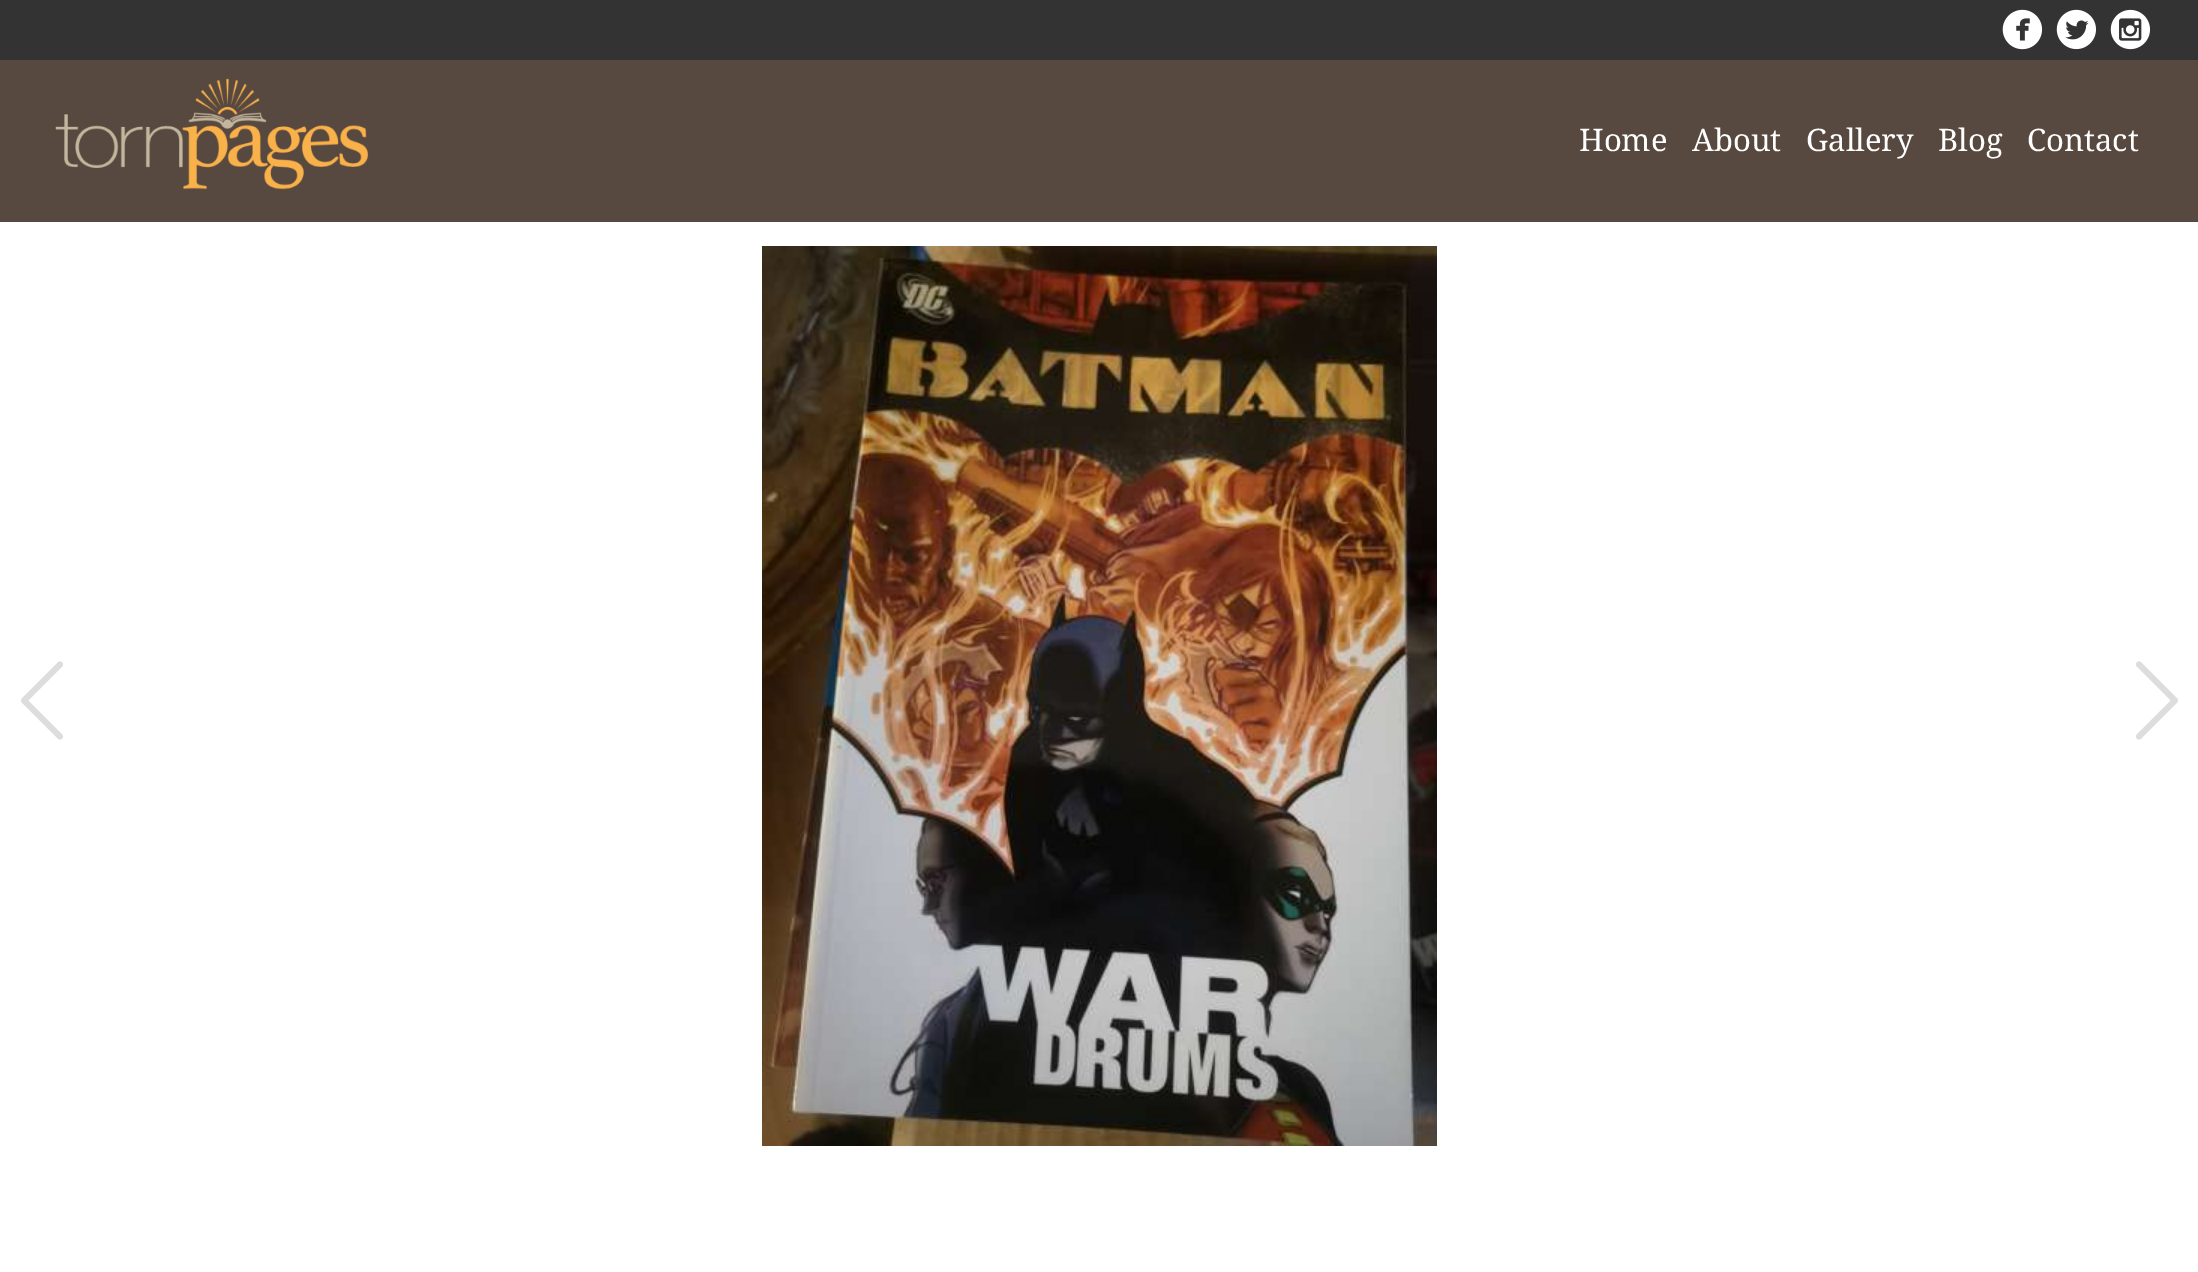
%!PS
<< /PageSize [2198 1272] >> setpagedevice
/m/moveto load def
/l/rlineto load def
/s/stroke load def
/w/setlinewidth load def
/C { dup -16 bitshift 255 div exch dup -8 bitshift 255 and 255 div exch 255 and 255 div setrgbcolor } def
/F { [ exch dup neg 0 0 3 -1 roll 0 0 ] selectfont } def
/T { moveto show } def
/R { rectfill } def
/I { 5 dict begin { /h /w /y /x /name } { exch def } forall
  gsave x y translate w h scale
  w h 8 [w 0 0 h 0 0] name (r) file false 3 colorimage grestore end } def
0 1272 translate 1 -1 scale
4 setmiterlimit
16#FFFFFF C
0 0 2198 1272 R
16#584940 C
0 60 2198 162 R
16#333333 C
0 0 2198 60 R
(1.rgb) 2002 9 41 41 I
(2.rgb) 2056 9 40 41 I
(3.rgb) 2110 9 40 41 I
(4.rgb) 55 78 314 112 I
/NotoSerif-Regular 31 F
16#FFFFFF C
(Home) 1579 151 T
(About) 1692 151 T
(Gallery) 1806 151 T
(Blog) 1938 151 T
(Contact) 2027 151 T
16#DDDDDD C
6 w
1 setlinecap
1 setlinejoin
60 736.5 m -36 -36 l 36 -36 l s
(5.rgb) 762 246 675 900 I
2139 736.5 m 36 -36 l -36 -36 l s
showpage
